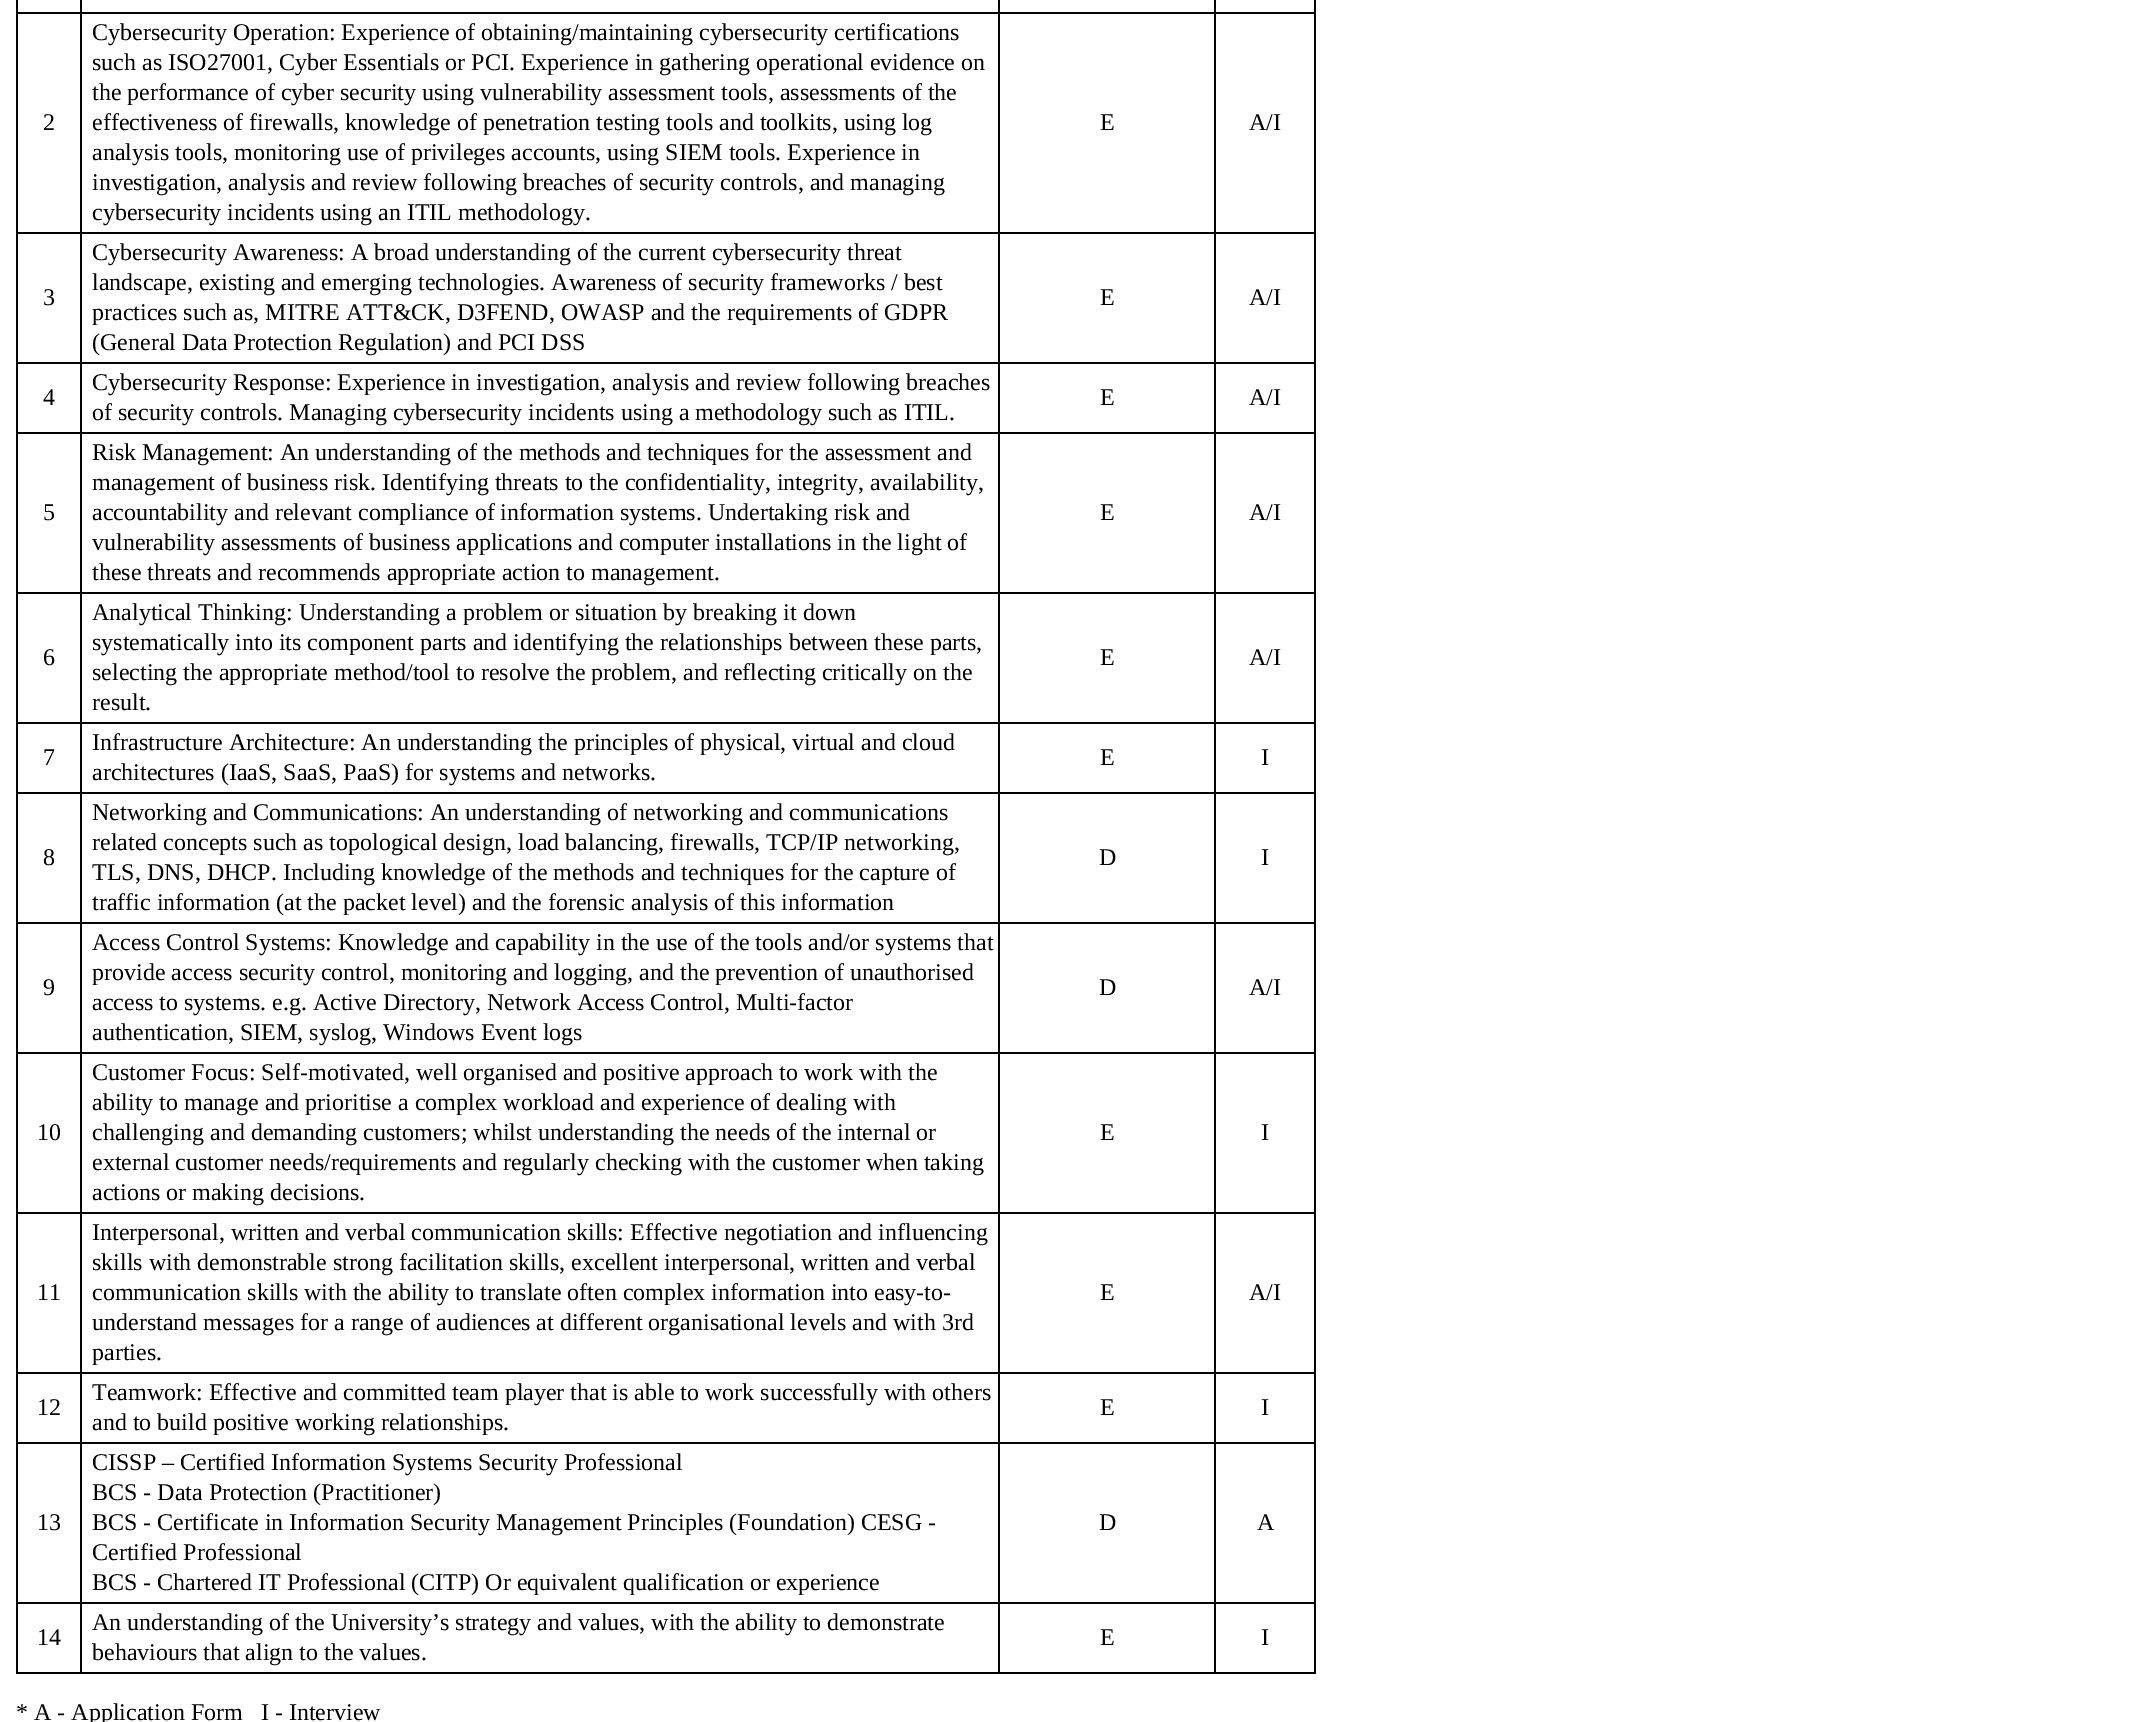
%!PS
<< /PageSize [2153 1722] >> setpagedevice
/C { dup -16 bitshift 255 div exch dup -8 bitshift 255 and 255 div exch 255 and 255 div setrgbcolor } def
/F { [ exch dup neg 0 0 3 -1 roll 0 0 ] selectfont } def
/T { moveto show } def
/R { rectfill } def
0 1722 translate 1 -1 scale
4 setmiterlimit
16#FFFFFF C
0 0 2153 1722 R
16#000000 C
1214 12 102 2 R
1214 232 102 2 R
1214 362 102 2 R
1214 432 102 2 R
1214 592 102 2 R
1214 722 102 2 R
1214 792 102 2 R
1214 922 102 2 R
1214 1052 102 2 R
1214 1212 102 2 R
1214 1372 102 2 R
1214 1442 102 2 R
1214 1602 102 2 R
1314 1602 2 72 R
1214 1672 102 2 R
1214 1602 2 72 R
998 1602 218 2 R
1214 1442 2 162 R
998 1442 218 2 R
1214 1372 2 72 R
998 1372 218 2 R
1214 1212 2 162 R
998 1212 218 2 R
1214 1052 2 162 R
998 1052 218 2 R
1214 922 2 132 R
998 922 218 2 R
1214 792 2 132 R
998 792 218 2 R
1214 722 2 72 R
998 722 218 2 R
1214 592 2 132 R
998 592 218 2 R
1214 432 2 162 R
998 432 218 2 R
1214 362 2 72 R
998 362 218 2 R
1214 232 2 132 R
998 232 218 2 R
1214 12 2 222 R
998 12 218 2 R
998 1672 218 2 R
998 1602 2 72 R
80 1602 920 2 R
998 1442 2 162 R
80 1442 920 2 R
998 1372 2 72 R
80 1372 920 2 R
998 1212 2 162 R
80 1212 920 2 R
998 1052 2 162 R
80 1052 920 2 R
998 922 2 132 R
80 922 920 2 R
998 792 2 132 R
80 792 920 2 R
998 722 2 72 R
80 722 920 2 R
998 592 2 132 R
80 592 920 2 R
998 432 2 162 R
80 432 920 2 R
998 362 2 72 R
80 362 920 2 R
998 232 2 132 R
80 232 920 2 R
998 12 2 222 R
80 12 920 2 R
80 1672 920 2 R
80 1602 2 72 R
16 1602 66 2 R
80 1442 2 162 R
16 1442 66 2 R
80 1372 2 72 R
16 1372 66 2 R
80 1212 2 162 R
16 1212 66 2 R
80 1052 2 162 R
16 1052 66 2 R
80 922 2 132 R
16 922 66 2 R
80 792 2 132 R
16 792 66 2 R
80 722 2 72 R
16 722 66 2 R
80 592 2 132 R
16 592 66 2 R
80 432 2 162 R
16 432 66 2 R
80 362 2 72 R
16 362 66 2 R
80 232 2 132 R
16 232 66 2 R
80 12 2 222 R
16 12 66 2 R
80 0 2 14 R
998 0 2 14 R
1214 0 2 14 R
16 1672 66 2 R
16 1602 2 72 R
16 1442 2 162 R
16 1372 2 72 R
16 1212 2 162 R
16 1052 2 162 R
16 922 2 132 R
16 792 2 132 R
16 722 2 72 R
16 592 2 132 R
16 432 2 162 R
16 362 2 72 R
16 232 2 132 R
16 0 2 234 R
/LiberationSerif-Regular 24 F
(2) 43 130 T
(Cybersecurity Operation: Experience of obtaining/maintaining cybersecurity certifications) 92 40 T
(such as ISO27001, Cyber Essentials or PCI. Experience in gathering operational evidence on) 92 70 T
(the performance of cyber security using vulnerability assessment tools, assessments of the) 92 100 T
(effectiveness of firewalls, knowledge of penetration testing tools and toolkits, using log) 92 130 T
(analysis tools, monitoring use of privileges accounts, using SIEM tools. Experience in) 92 160 T
(investigation, analysis and review following breaches of security controls, and managing) 92 190 T
(cybersecurity incidents using an ITIL methodology.) 92 220 T
(E) 1100 130 T
1314 1442 2 162 R
1314 1372 2 72 R
1314 1212 2 162 R
1314 1052 2 162 R
1314 922 2 132 R
1314 792 2 132 R
1314 722 2 72 R
1314 592 2 132 R
1314 432 2 162 R
1314 362 2 72 R
1314 232 2 132 R
1314 0 2 234 R
(A/I) 1249 130 T
(3) 43 305 T
(Cybersecurity Awareness: A broad understanding of the current cybersecurity threat) 92 260 T
(landscape, existing and emerging technologies. Awareness of security frameworks / best) 92 290 T
(practices such as, MITRE ATT&CK, D3FEND, OWASP and the requirements of GDPR) 92 320 T
(\(General Data Protection Regulation\) and PCI DSS) 92 350 T
(E) 1100 305 T
(A/I) 1249 305 T
(4) 43 405 T
(Cybersecurity Response: Experience in investigation, analysis and review following breaches) 92 390 T
(of security controls. Managing cybersecurity incidents using a methodology such as ITIL.) 92 420 T
(E) 1100 405 T
(A/I) 1249 405 T
(5) 43 520 T
(Risk Management: An understanding of the methods and techniques for the assessment and) 92 460 T
(management of business risk. Identifying threats to the confidentiality, integrity, availability,) 92 490 T
(accountability and relevant compliance of information systems. Undertaking risk and) 92 520 T
(vulnerability assessments of business applications and computer installations in the light of) 92 550 T
(these threats and recommends appropriate action to management.) 92 580 T
(E) 1100 520 T
(A/I) 1249 520 T
(6) 43 665 T
(Analytical Thinking: Understanding a problem or situation by breaking it down) 92 620 T
(systematically into its component parts and identifying the relationships between these parts,) 92 650 T
(selecting the appropriate method/tool to resolve the problem, and reflecting critically on the) 92 680 T
(result.) 92 710 T
(E) 1100 665 T
(A/I) 1249 665 T
(7) 43 765 T
(Infrastructure Architecture: An understanding the principles of physical, virtual and cloud) 92 750 T
(architectures \(IaaS, SaaS, PaaS\) for systems and networks.) 92 780 T
(E) 1100 765 T
(I) 1261 765 T
(8) 43 865 T
(Networking and Communications: An understanding of networking and communications) 92 820 T
(related concepts such as topological design, load balancing, firewalls, TCP/IP networking,) 92 850 T
(TLS, DNS, DHCP. Including knowledge of the methods and techniques for the capture of) 92 880 T
(traffic information \(at the packet level\) and the forensic analysis of this information) 92 910 T
(D) 1099 865 T
(I) 1261 865 T
(9) 43 995 T
(Access Control Systems: Knowledge and capability in the use of the tools and/or systems that) 92 950 T
(provide access security control, monitoring and logging, and the prevention of unauthorised) 92 980 T
(access to systems. e.g. Active Directory, Network Access Control, Multi-factor) 92 1010 T
(authentication, SIEM, syslog, Windows Event logs) 92 1040 T
(D) 1099 995 T
(A/I) 1249 995 T
(10) 37 1140 T
(Customer Focus: Self-motivated, well organised and positive approach to work with the) 92 1080 T
(ability to manage and prioritise a complex workload and experience of dealing with) 92 1110 T
(challenging and demanding customers; whilst understanding the needs of the internal or) 92 1140 T
(external customer needs/requirements and regularly checking with the customer when taking) 92 1170 T
(actions or making decisions.) 92 1200 T
(E) 1100 1140 T
(I) 1261 1140 T
(11) 37 1300 T
(Interpersonal, written and verbal communication skills: Effective negotiation and influencing) 92 1240 T
(skills with demonstrable strong facilitation skills, excellent interpersonal, written and verbal) 92 1270 T
(communication skills with the ability to translate often complex information into easy-to-) 92 1300 T
(understand messages for a range of audiences at different organisational levels and with 3rd) 92 1330 T
(parties.) 92 1360 T
(E) 1100 1300 T
(A/I) 1249 1300 T
(12) 37 1415 T
(Teamwork: Effective and committed team player that is able to work successfully with others) 92 1400 T
(and to build positive working relationships.) 92 1430 T
(E) 1100 1415 T
(I) 1261 1415 T
(13) 37 1530 T
(CISSP – Certified Information Systems Security Professional) 92 1470 T
(BCS - Data Protection \(Practitioner\)) 92 1500 T
(BCS - Certificate in Information Security Management Principles \(Foundation\) CESG -) 92 1530 T
(Certified Professional) 92 1560 T
(BCS - Chartered IT Professional \(CITP\) Or equivalent qualification or experience) 92 1590 T
(D) 1099 1530 T
(A) 1257 1530 T
(14) 37 1645 T
(An understanding of the University’s strategy and values, with the ability to demonstrate) 92 1630 T
(behaviours that align to the values.) 92 1660 T
(E) 1100 1645 T
(I) 1261 1645 T
(* A - Application Form   I - Interview) 16 1720 T
showpage
